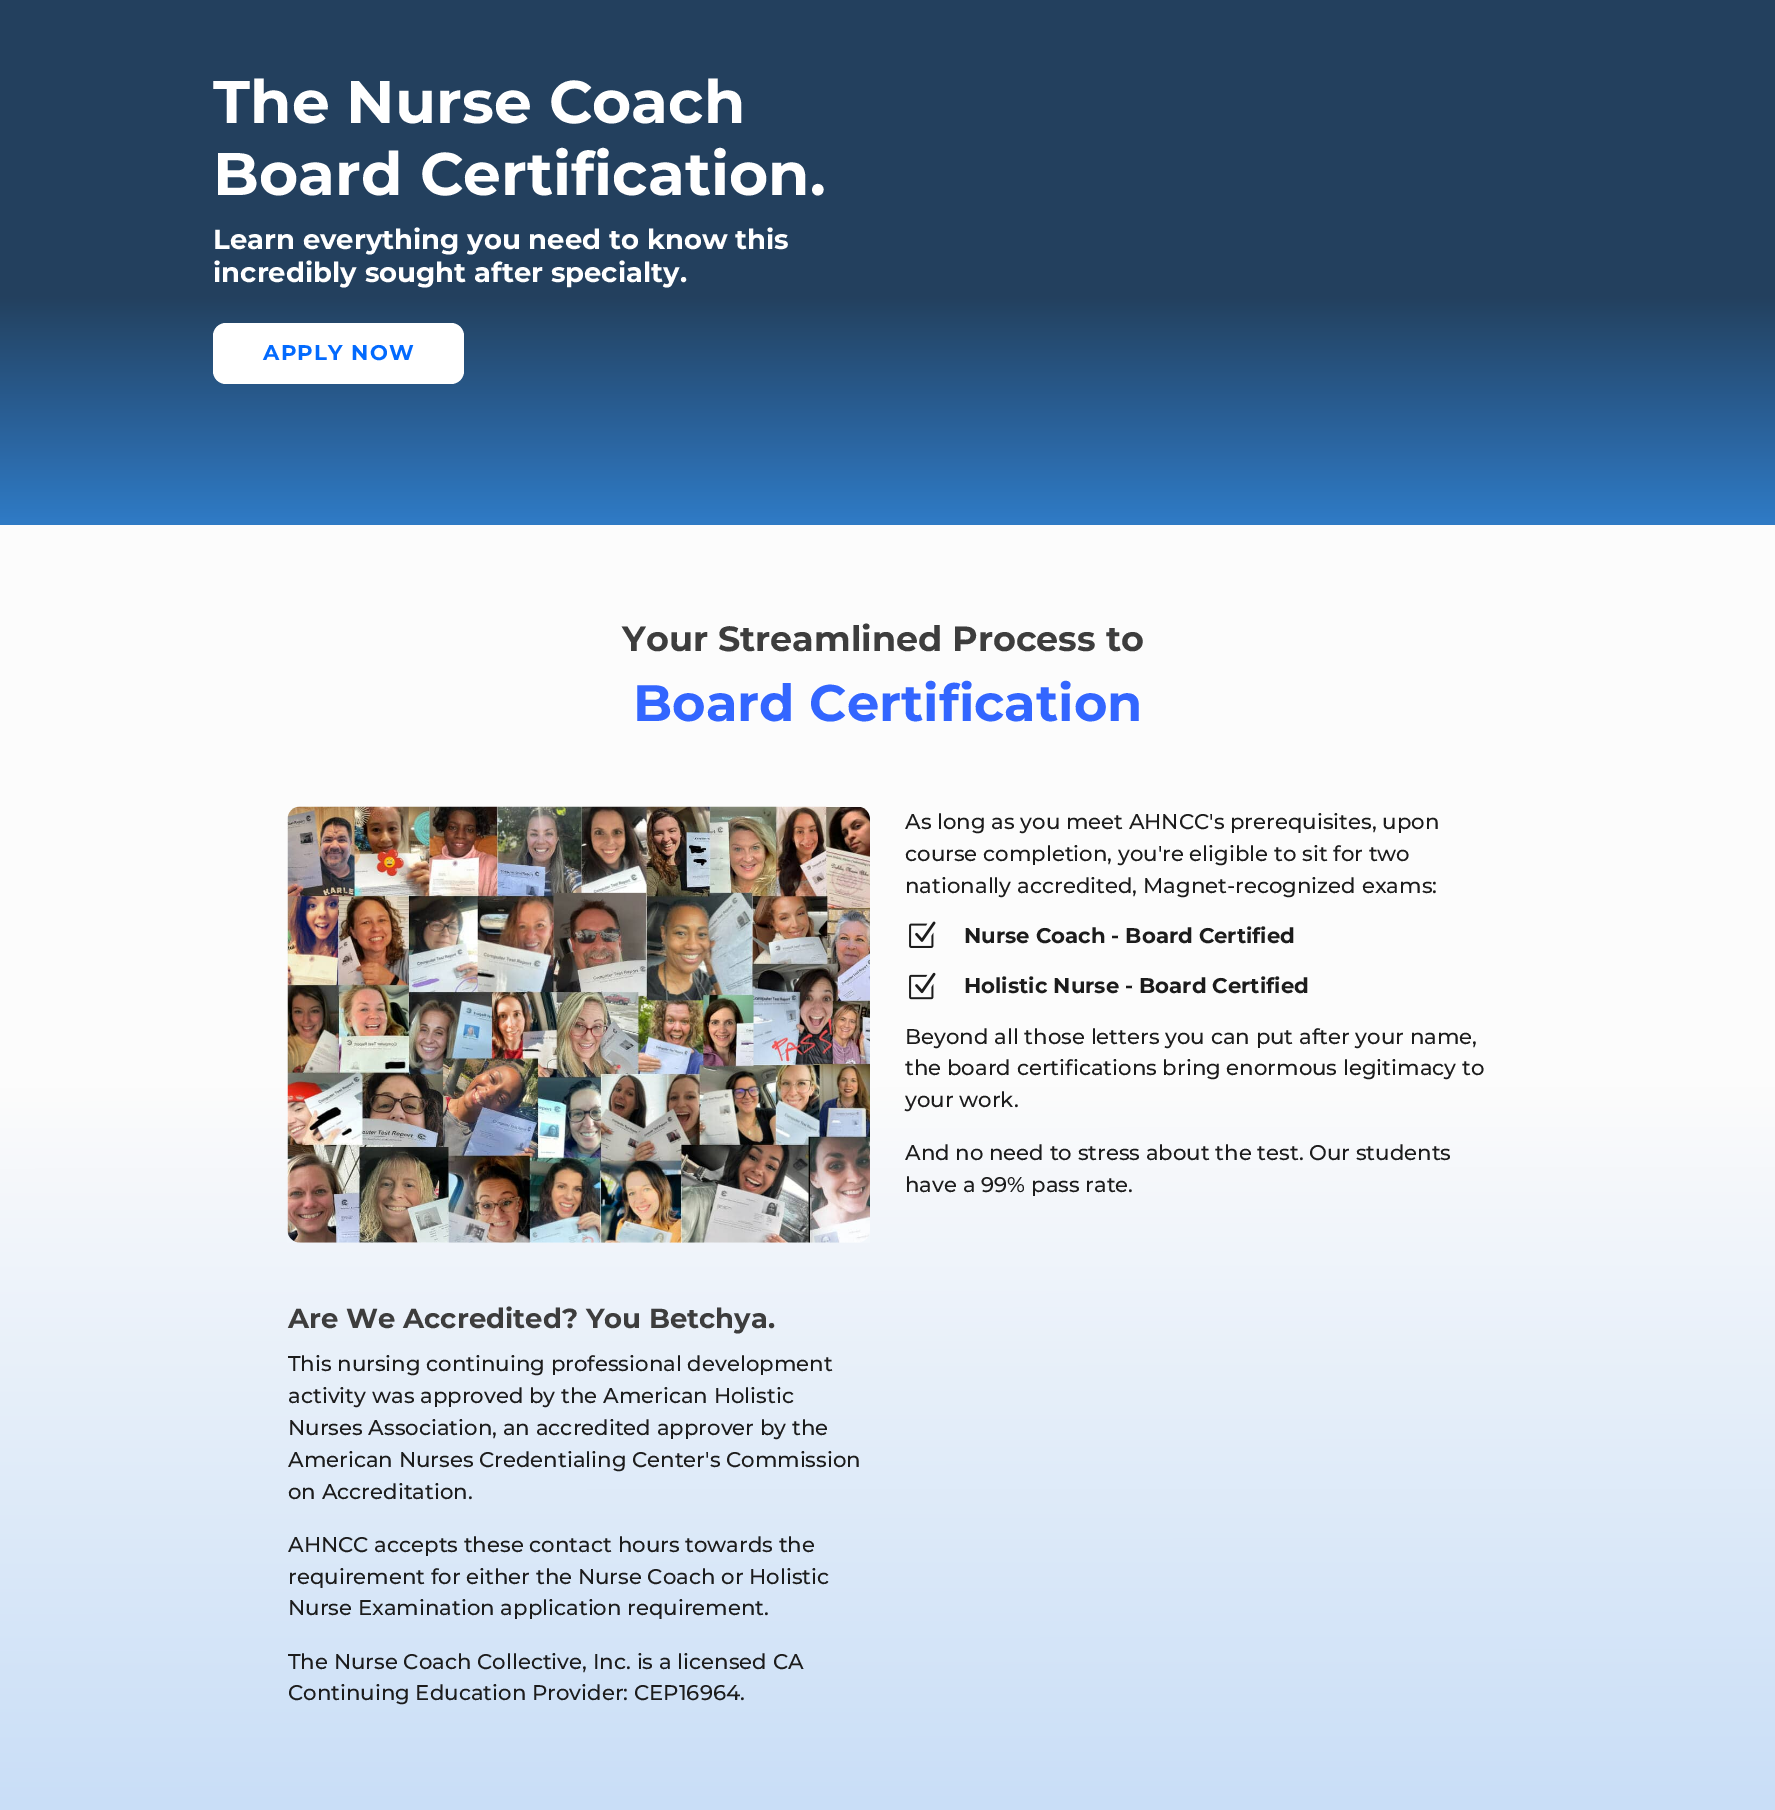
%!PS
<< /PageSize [1775 1810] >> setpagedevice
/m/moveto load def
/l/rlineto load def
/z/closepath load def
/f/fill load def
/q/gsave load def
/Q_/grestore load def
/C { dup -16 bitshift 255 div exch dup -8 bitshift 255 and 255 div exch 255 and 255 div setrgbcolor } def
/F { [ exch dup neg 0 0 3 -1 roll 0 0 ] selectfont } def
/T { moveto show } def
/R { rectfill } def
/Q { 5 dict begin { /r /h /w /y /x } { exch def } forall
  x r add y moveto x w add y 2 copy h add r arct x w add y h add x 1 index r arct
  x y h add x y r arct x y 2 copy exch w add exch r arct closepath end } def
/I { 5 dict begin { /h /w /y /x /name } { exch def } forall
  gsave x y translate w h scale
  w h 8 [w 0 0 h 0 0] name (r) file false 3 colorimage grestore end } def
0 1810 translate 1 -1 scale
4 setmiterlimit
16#FFFFFF C
0 0 1775 1810 R
q 0 0 m 1775 0 l 0 525 l -1775 0 l z clip newpath
<< /ShadingType 2 /ColorSpace /DeviceRGB /Coords [888 -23 888 525] /Extend [true true] /Function << /FunctionType 3 /Domain [0 1] /Functions [<< /FunctionType 2 /Domain [0 1] /C0 [.137 .251 .369] /C1 [.137 .251 .369] /N 1 >> << /FunctionType 2 /Domain [0 1] /C0 [.137 .251 .369] /C1 [.184 .478 .769] /N 1 >> << /FunctionType 2 /Domain [0 1] /C0 [.184 .478 .769] /C1 [.184 .478 .769] /N 1 >>] /Bounds [.58 .99] /Encode [0 1 0 1 0 1] >> >> shfill Q_
/Montserrat-Bold 60 F
(The Nurse Coach) 213 123 T
(Board Certification.) 213 195 T
/Montserrat-Bold 27.5 F
(Learn everything you need to know this) 213 249 T
(incredibly sought after specialty.) 213 282 T
213 323 251 61 13 Q f
/Montserrat-Bold 21.25 F
16#026AFE C
263 360 m 1.25 0 (APPLY NOW) ashow
q 0 525 m 1775 0 l 0 1285 l -1775 0 l z clip newpath
<< /ShadingType 2 /ColorSpace /DeviceRGB /Coords [887 525 888 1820] /Extend [true true] /Function << /FunctionType 3 /Domain [0 1] /Functions [<< /FunctionType 2 /Domain [0 1] /C0 [.988 .988 .988] /C1 [.988 .988 .988] /N 1 >> << /FunctionType 2 /Domain [0 1] /C0 [.988 .988 .988] /C1 [.784 .871 .969] /N 1 >>] /Bounds [.43] /Encode [0 1 0 1] >> >> shfill Q_
/Montserrat-Bold 35 F
16#3D3D3D C
(Your Streamlined Process to) 622 651 T
/Montserrat-Bold 51.25 F
16#3366FF C
(Board Certification) 633 721 T
(1.rgb) 287 806 583 437 I
/Montserrat-Medium 21.25 F
16#1C1C1C C
(As long as you meet AHNCC's prerequisites, upon) 905 829 T
(course completion, you're eligible to sit for two) 905 861 T
(nationally accredited, Magnet-recognized exams:) 905 893 T
(2.rgb) 909 921 27 27 I
/Montserrat-Bold 21.25 F
(Nurse Coach - Board Certified) 964 943 T
(3.rgb) 909 972 27 28 I
(Holistic Nurse - Board Certified) 964 993 T
/Montserrat-Medium 21.25 F
(Beyond all those letters you can put after your name,) 905 1044 T
(the board certifications bring enormous legitimacy to) 905 1075 T
(your work.) 905 1107 T
(And no need to stress about the test. Our students) 905 1160 T
(have a 99% pass rate.) 905 1192 T
/Montserrat-Bold 27.5 F
16#3D3D3D C
(Are We Accredited? You Betchya.) 288 1328 T
/Montserrat-Medium 21.25 F
16#1C1C1C C
(This nursing continuing professional development) 288 1371 T
(activity was approved by the American Holistic) 288 1403 T
(Nurses Association, an accredited approver by the) 288 1435 T
(American Nurses Credentialing Center's Commission) 288 1467 T
(on Accreditation.) 288 1499 T
(AHNCC accepts these contact hours towards the) 288 1552 T
(requirement for either the Nurse Coach or Holistic) 288 1584 T
(Nurse Examination application requirement.) 288 1615 T
(The Nurse Coach Collective, Inc. is a licensed CA) 288 1669 T
(Continuing Education Provider: CEP16964.) 288 1700 T
showpage
